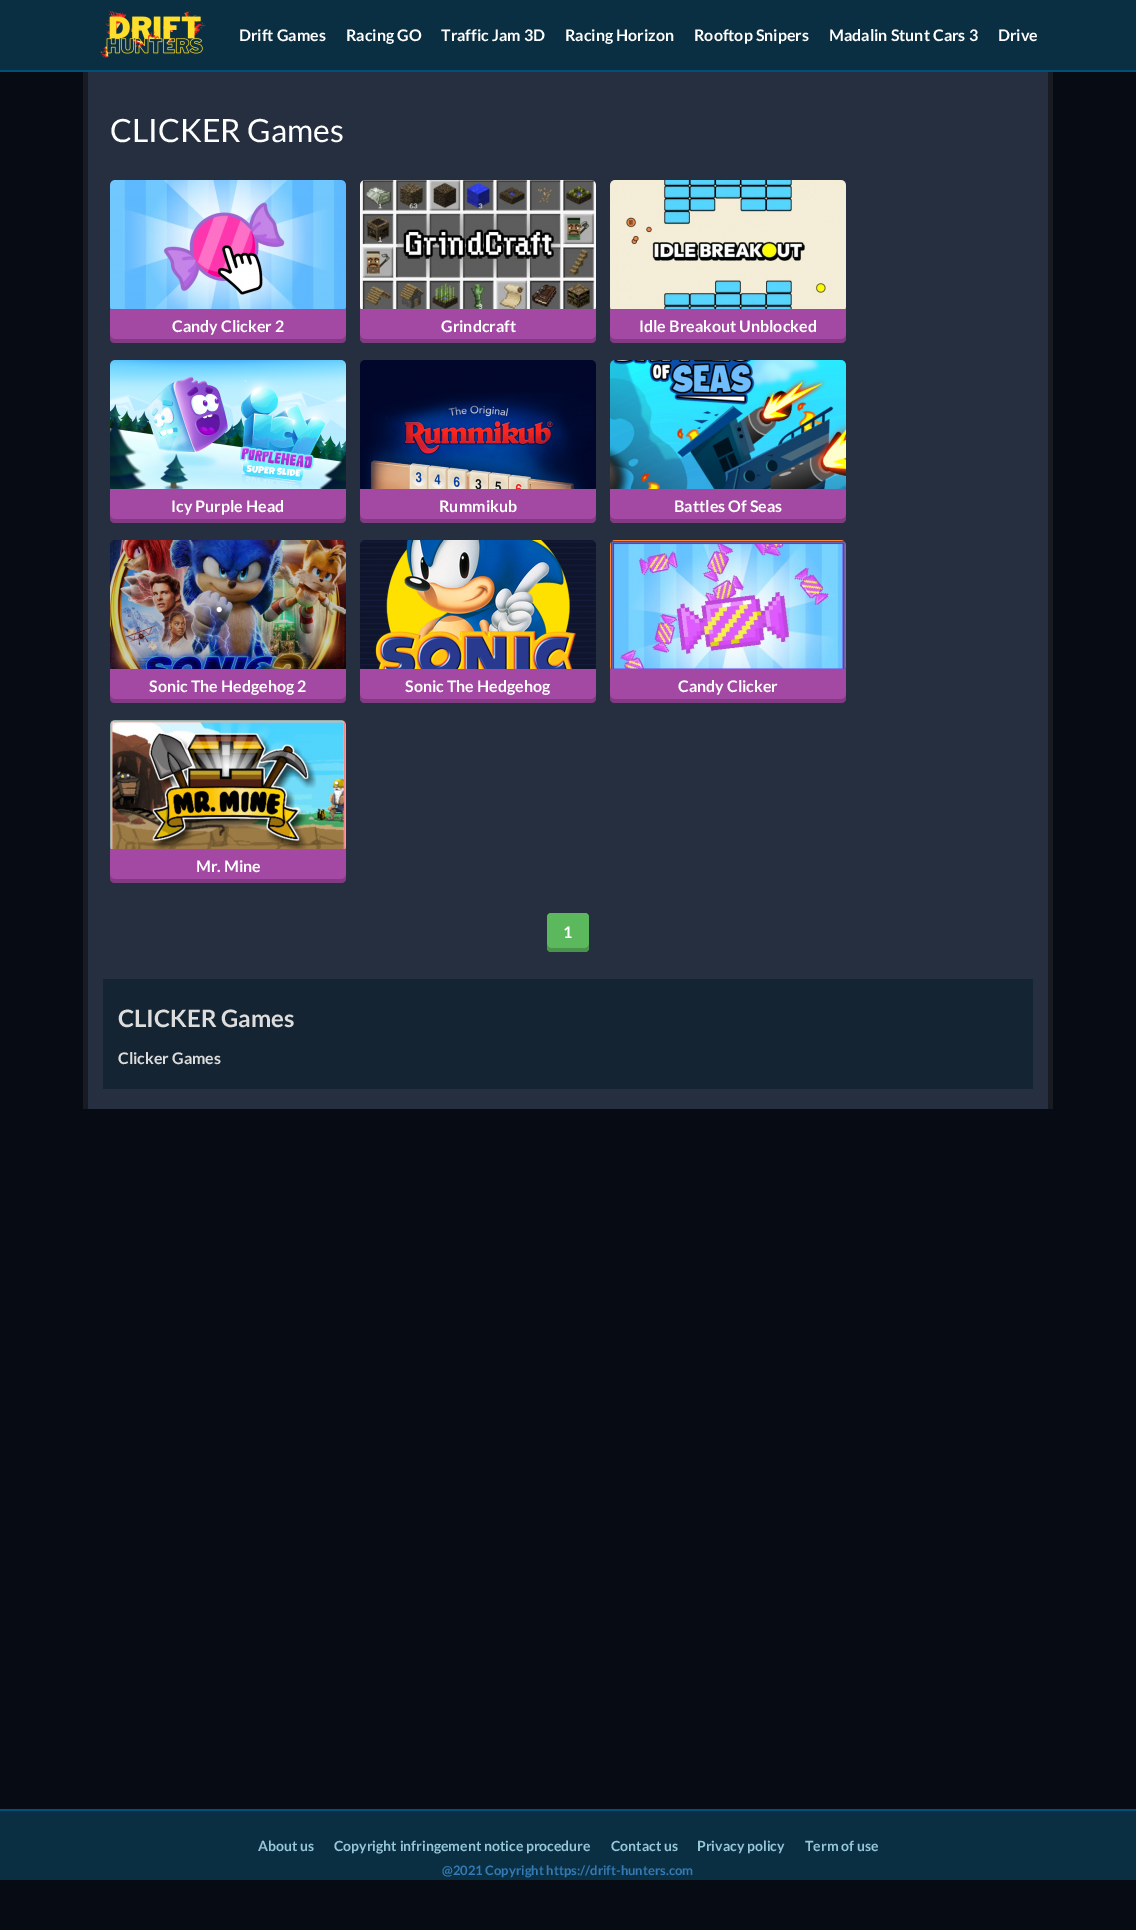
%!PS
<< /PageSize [1136 1930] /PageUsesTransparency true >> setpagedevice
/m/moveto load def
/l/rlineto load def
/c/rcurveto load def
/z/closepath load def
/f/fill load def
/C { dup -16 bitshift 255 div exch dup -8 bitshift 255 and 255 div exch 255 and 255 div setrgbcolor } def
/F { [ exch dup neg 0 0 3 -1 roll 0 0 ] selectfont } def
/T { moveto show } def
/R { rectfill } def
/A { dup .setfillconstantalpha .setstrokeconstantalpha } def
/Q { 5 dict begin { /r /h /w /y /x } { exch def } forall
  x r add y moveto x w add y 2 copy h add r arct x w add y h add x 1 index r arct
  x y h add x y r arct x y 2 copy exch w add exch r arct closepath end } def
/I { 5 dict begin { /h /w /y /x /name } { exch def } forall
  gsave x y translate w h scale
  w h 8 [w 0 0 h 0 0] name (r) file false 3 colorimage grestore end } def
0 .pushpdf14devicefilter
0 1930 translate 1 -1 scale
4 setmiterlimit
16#070C14 C
0 0 1136 1930 R
16#0B2F42 C
0 0 1136 70 R
16#024F7B C
0 70 1136 2 R
(1.rgb) 100 10 106 48 I
/Lato-Bold 16 F
16#FFFFFF C
(Drift Games) 239 41 T
(Racing GO) 346 41 T
(Traffic Jam 3D) 441 41 T
(Racing Horizon) 565 41 T
(Rooftop Snipers) 694 41 T
(Madalin Stunt Cars 3) 829 41 T
(Drive) 998 41 T
16#252F3F C
88 72 960 1037 R
16#181C22 C
1048 72 5 1037 R
83 72 5 1037 R
/Lato-Regular 32 F
16#FFFFFF C
(CLICKER Games) 110 142 T
(2.rgb) 110 180 236 129 I
16#A349A3 C
110 309 m 236 0 l 0 29 l 0 3 -2 5 -5 5 c -226 0 l -3 0 -5 -2 -5 -5 c z f
0.2 A
16#000000 C
110 334 m 0 4 l 0 3 2 5 5 5 c 226 0 l 3 0 5 -2 5 -5 c 0 -4 l 0 3 -2 5 -5 5 c -226 0 l -3 0 -5 -2 -5 -5 c z f
/Lato-Bold 16 F
1 A
16#FFFFFF C
(Candy Clicker 2) 172 332 T
(3.rgb) 360 180 236 129 I
16#A349A3 C
360 309 m 236 0 l 0 29 l 0 3 -2 5 -5 5 c -226 0 l -3 0 -5 -2 -5 -5 c z f
0.2 A
16#000000 C
360 334 m 0 4 l 0 3 2 5 5 5 c 226 0 l 3 0 5 -2 5 -5 c 0 -4 l 0 3 -2 5 -5 5 c -226 0 l -3 0 -5 -2 -5 -5 c z f
1 A
16#FFFFFF C
(Grindcraft) 441 332 T
(4.rgb) 610 180 236 129 I
16#A349A3 C
610 309 m 236 0 l 0 29 l 0 3 -2 5 -5 5 c -226 0 l -3 0 -5 -2 -5 -5 c z f
0.2 A
16#000000 C
610 334 m 0 4 l 0 3 2 5 5 5 c 226 0 l 3 0 5 -2 5 -5 c 0 -4 l 0 3 -2 5 -5 5 c -226 0 l -3 0 -5 -2 -5 -5 c z f
1 A
16#FFFFFF C
(Idle Breakout Unblocked) 639 332 T
(5.rgb) 110 360 236 129 I
16#A349A3 C
110 489 m 236 0 l 0 29 l 0 3 -2 5 -5 5 c -226 0 l -3 0 -5 -2 -5 -5 c z f
0.2 A
16#000000 C
110 514 m 0 4 l 0 3 2 5 5 5 c 226 0 l 3 0 5 -2 5 -5 c 0 -4 l 0 3 -2 5 -5 5 c -226 0 l -3 0 -5 -2 -5 -5 c z f
1 A
16#FFFFFF C
(Icy Purple Head) 171 512 T
(6.rgb) 360 360 236 129 I
16#A349A3 C
360 489 m 236 0 l 0 29 l 0 3 -2 5 -5 5 c -226 0 l -3 0 -5 -2 -5 -5 c z f
0.2 A
16#000000 C
360 514 m 0 4 l 0 3 2 5 5 5 c 226 0 l 3 0 5 -2 5 -5 c 0 -4 l 0 3 -2 5 -5 5 c -226 0 l -3 0 -5 -2 -5 -5 c z f
1 A
16#FFFFFF C
(Rummikub) 439 512 T
(7.rgb) 610 360 236 129 I
16#A349A3 C
610 489 m 236 0 l 0 29 l 0 3 -2 5 -5 5 c -226 0 l -3 0 -5 -2 -5 -5 c z f
0.2 A
16#000000 C
610 514 m 0 4 l 0 3 2 5 5 5 c 226 0 l 3 0 5 -2 5 -5 c 0 -4 l 0 3 -2 5 -5 5 c -226 0 l -3 0 -5 -2 -5 -5 c z f
1 A
16#FFFFFF C
(Battles Of Seas) 674 512 T
(8.rgb) 110 540 236 129 I
16#A349A3 C
110 669 m 236 0 l 0 29 l 0 3 -2 5 -5 5 c -226 0 l -3 0 -5 -2 -5 -5 c z f
0.2 A
16#000000 C
110 694 m 0 4 l 0 3 2 5 5 5 c 226 0 l 3 0 5 -2 5 -5 c 0 -4 l 0 3 -2 5 -5 5 c -226 0 l -3 0 -5 -2 -5 -5 c z f
1 A
16#FFFFFF C
(Sonic The Hedgehog 2) 149 692 T
(9.rgb) 360 540 236 129 I
16#A349A3 C
360 669 m 236 0 l 0 29 l 0 3 -2 5 -5 5 c -226 0 l -3 0 -5 -2 -5 -5 c z f
0.2 A
16#000000 C
360 694 m 0 4 l 0 3 2 5 5 5 c 226 0 l 3 0 5 -2 5 -5 c 0 -4 l 0 3 -2 5 -5 5 c -226 0 l -3 0 -5 -2 -5 -5 c z f
1 A
16#FFFFFF C
(Sonic The Hedgehog) 405 692 T
(10.rgb) 610 540 236 129 I
16#A349A3 C
610 669 m 236 0 l 0 29 l 0 3 -2 5 -5 5 c -226 0 l -3 0 -5 -2 -5 -5 c z f
0.2 A
16#000000 C
610 694 m 0 4 l 0 3 2 5 5 5 c 226 0 l 3 0 5 -2 5 -5 c 0 -4 l 0 3 -2 5 -5 5 c -226 0 l -3 0 -5 -2 -5 -5 c z f
1 A
16#FFFFFF C
(Candy Clicker) 678 692 T
(11.rgb) 110 720 236 129 I
16#A349A3 C
110 849 m 236 0 l 0 29 l 0 3 -2 5 -5 5 c -226 0 l -3 0 -5 -2 -5 -5 c z f
0.2 A
16#000000 C
110 874 m 0 4 l 0 3 2 5 5 5 c 226 0 l 3 0 5 -2 5 -5 c 0 -4 l 0 3 -2 5 -5 5 c -226 0 l -3 0 -5 -2 -5 -5 c z f
1 A
16#FFFFFF C
(Mr. Mine) 196 872 T
16#5CB85C C
547 913 42 39 4 Q f
0.2 A
16#000000 C
547 944 m 0 8 1 8 10 8 c 22 0 l 9 0 10 0 10 -8 c 0 2 -2 4 -4 4 c -34 0 l -2 0 -4 -2 -4 -4 c z f
1 A
16#FFFFFF C
(1) 563 938 T
16#152432 C
103 979 930 110 R
/Lato-Bold 24 F
16#DDDDDD C
(CLICKER Games) 118 1027 T
/Lato-Bold 16 F
(Clicker Games) 118 1064 T
16#0B2F42 C
0 1811 1136 69 R
16#024F7B C
0 1809 1136 2 R
/Lato-Bold 14 F
16#96C6D9 C
(About us) 258 1851 T
(Copyright infringement notice procedure) 334 1851 T
(Contact us) 611 1851 T
(Privacy policy) 697 1851 T
(Term of use) 805 1851 T
/Lato-Bold 13 F
16#337AB7 C
(@2021 Copyright https://drift-hunters.com) 442 1875 T
.poppdf14devicefilter showpage
